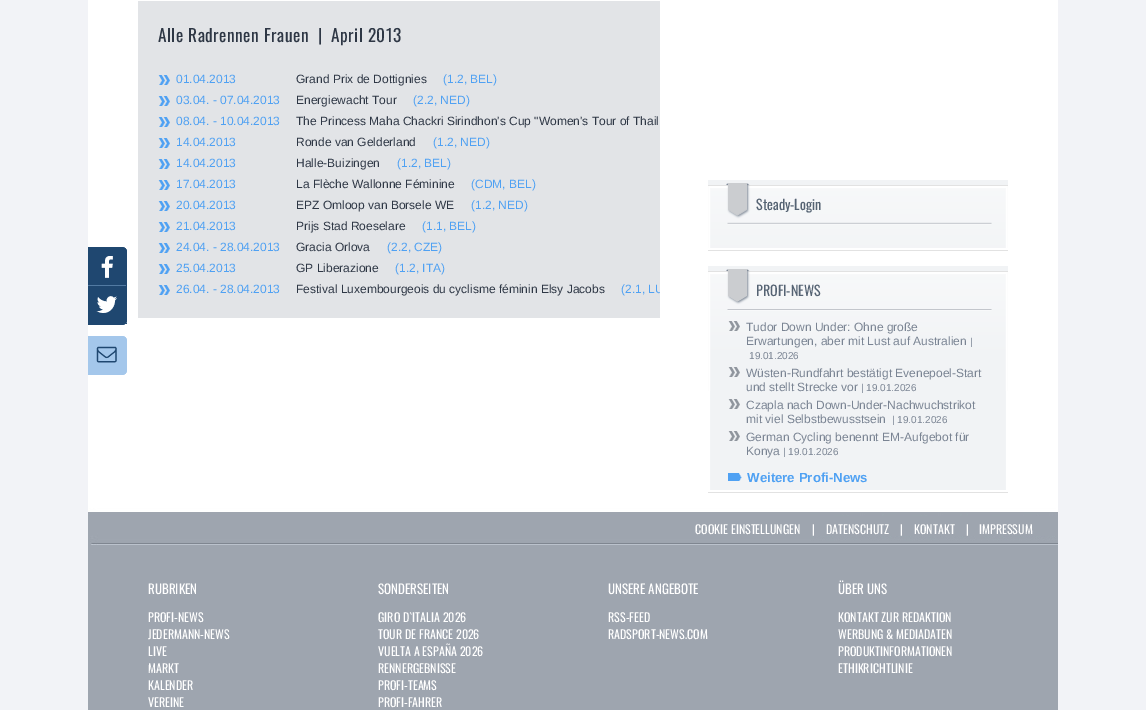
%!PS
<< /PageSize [1146 710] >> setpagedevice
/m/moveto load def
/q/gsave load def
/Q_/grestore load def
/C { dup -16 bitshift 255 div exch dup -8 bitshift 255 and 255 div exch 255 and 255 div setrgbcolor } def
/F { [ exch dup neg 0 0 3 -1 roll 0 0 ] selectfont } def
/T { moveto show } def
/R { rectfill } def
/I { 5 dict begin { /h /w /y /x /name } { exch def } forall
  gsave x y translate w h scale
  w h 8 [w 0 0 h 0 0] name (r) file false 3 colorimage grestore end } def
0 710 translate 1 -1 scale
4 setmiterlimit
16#F2F3F7 C
0 0 1146 710 R
16#FFFFFF C
88 0 970 508 R
(1.rgb) 88 247 39 128 I
16#E2E4E7 C
138 1 522 317 R
/Oswald-Regular 17.3 F
16#2E3745 C
158 42 m .5 0 (Alle Radrennen Frauen  |  April 2013) ashow
(2.rgb) 158 75 12 10 I
/LiberationSans-Regular 12 F
16#4FA1F3 C
(01.04.2013) 176 83 T
16#2E3745 C
(Grand Prix de Dottignies) 296 83 T
16#4FA1F3 C
(\(1.2, BEL\)) 443 83 T
(2.rgb) 158 96 12 10 I
(03.04. - 07.04.2013) 176 104 T
16#2E3745 C
(Energiewacht Tour) 296 104 T
16#4FA1F3 C
(\(2.2, NED\)) 413 104 T
(2.rgb) 158 117 12 10 I
(08.04. - 10.04.2013) 176 125 T
16#2E3745 C
(The Princess Maha Chackri Sirindhon's Cup "Women's Tour of Thail) 296 125 T
(2.rgb) 158 138 12 10 I
16#4FA1F3 C
(14.04.2013) 176 146 T
16#2E3745 C
(Ronde van Gelderland) 296 146 T
16#4FA1F3 C
(\(1.2, NED\)) 433 146 T
(2.rgb) 158 159 12 10 I
(14.04.2013) 176 167 T
16#2E3745 C
(Halle-Buizingen) 296 167 T
16#4FA1F3 C
(\(1.2, BEL\)) 397 167 T
(2.rgb) 158 180 12 10 I
(17.04.2013) 176 188 T
16#2E3745 C
(La Flèche Wallonne Féminine) 296 188 T
16#4FA1F3 C
(\(CDM, BEL\)) 471 188 T
(2.rgb) 158 201 12 10 I
(20.04.2013) 176 209 T
16#2E3745 C
(EPZ Omloop van Borsele WE) 296 209 T
16#4FA1F3 C
(\(1.2, NED\)) 471 209 T
(2.rgb) 158 222 12 10 I
(21.04.2013) 176 230 T
16#2E3745 C
(Prijs Stad Roeselare) 296 230 T
16#4FA1F3 C
(\(1.1, BEL\)) 422 230 T
(2.rgb) 158 243 12 10 I
(24.04. - 28.04.2013) 176 251 T
16#2E3745 C
(Gracia Orlova) 296 251 T
16#4FA1F3 C
(\(2.2, CZE\)) 387 251 T
(2.rgb) 158 264 12 10 I
(25.04.2013) 176 272 T
16#2E3745 C
(GP Liberazione) 296 272 T
16#4FA1F3 C
(\(1.2, ITA\)) 395 272 T
(2.rgb) 158 285 12 10 I
(26.04. - 28.04.2013) 176 293 T
16#2E3745 C
(Festival Luxembourgeois du cyclisme féminin Elsy Jacobs) 296 293 T
q
138 1 522 317 rectclip
16#4FA1F3 C
(\(2.1, LU) 621 293 T
Q_
(3.rgb) 708 180 300 68 I
16#E2E2E2 C
708 250 300 1 R
/Oswald-Regular 14 F
16#556373 C
(Steady-Login) 756 210 T
(4.rgb) 708 266 300 224 I
16#E2E2E2 C
708 492 300 1 R
16#556373 C
(PROFI-NEWS) 756 296 T
(5.rgb) 728 321 12 10 I
/LiberationSans-Regular 12 F
16#7A8493 C
(Tudor Down Under: Ohne große) 746 331 T
(Erwartungen, aber mit Lust auf Australien) 746 345 T
/LiberationSans-Regular 10 F
(|) 970 345 T
(19.01.2026) 749 359 T
(6.rgb) 728 367 12 10 I
/LiberationSans-Regular 12 F
(Wüsten-Rundfahrt bestätigt Evenepoel-Start) 746 377 T
(und stellt Strecke vor) 746 391 T
/LiberationSans-Regular 10 F
(| 19.01.2026) 861 391 T
(6.rgb) 728 399 12 10 I
/LiberationSans-Regular 12 F
(Czapla nach Down-Under-Nachwuchstrikot) 746 409 T
(mit viel Selbstbewusstsein) 746 423 T
/LiberationSans-Regular 10 F
(| 19.01.2026) 892 423 T
(6.rgb) 728 431 12 10 I
/LiberationSans-Regular 12 F
(German Cycling benennt EM-Aufgebot für) 746 441 T
(Konya) 746 455 T
/LiberationSans-Regular 10 F
(| 19.01.2026) 783 455 T
(7.rgb) 728 473 14 8 I
/LiberationSans-Bold 13.25 F
16#4FA1F3 C
(Weitere Profi-News) 747 482 T
16#9EA5AF C
88 545 970 165 R
(8.rgb) 88 508 970 37 I
/Oswald-Regular 12 F
16#FFFFFF C
(COOKIE EINSTELLUNGEN) 695 534 T
(|) 812 534 T
(DATENSCHUTZ) 826 534 T
(|) 900 534 T
(KONTAKT) 914 534 T
(|) 966 534 T
(IMPRESSUM) 979 534 T
/Oswald-Regular 13 F
(RUBRIKEN) 148 594 T
/Oswald-Regular 12 F
(PROFI-NEWS) 148 622 T
(JEDERMANN-NEWS) 148 639 T
(LIVE) 148 656 T
(MARKT) 148 673 T
(KALENDER) 148 690 T
(VEREINE) 148 707 T
/Oswald-Regular 13 F
(SONDERSEITEN) 378 594 T
/Oswald-Regular 12 F
(GIRO D`ITALIA 2026) 378 622 T
(TOUR DE FRANCE 2026) 378 639 T
(VUELTA A ESPAÑA 2026) 378 656 T
(RENNERGEBNISSE) 378 673 T
(PROFI-TEAMS) 378 690 T
(PROFI-FAHRER) 378 707 T
/Oswald-Regular 13 F
(UNSERE ANGEBOTE) 608 594 T
/Oswald-Regular 12 F
(RSS-FEED) 608 622 T
(RADSPORT-NEWS.COM) 608 639 T
/Oswald-Regular 13 F
(ÜBER UNS) 838 594 T
/Oswald-Regular 12 F
(KONTAKT ZUR REDAKTION) 838 622 T
(WERBUNG & MEDIADATEN) 838 639 T
(PRODUKTINFORMATIONEN) 838 656 T
(ETHIKRICHTLINIE) 838 673 T
showpage
